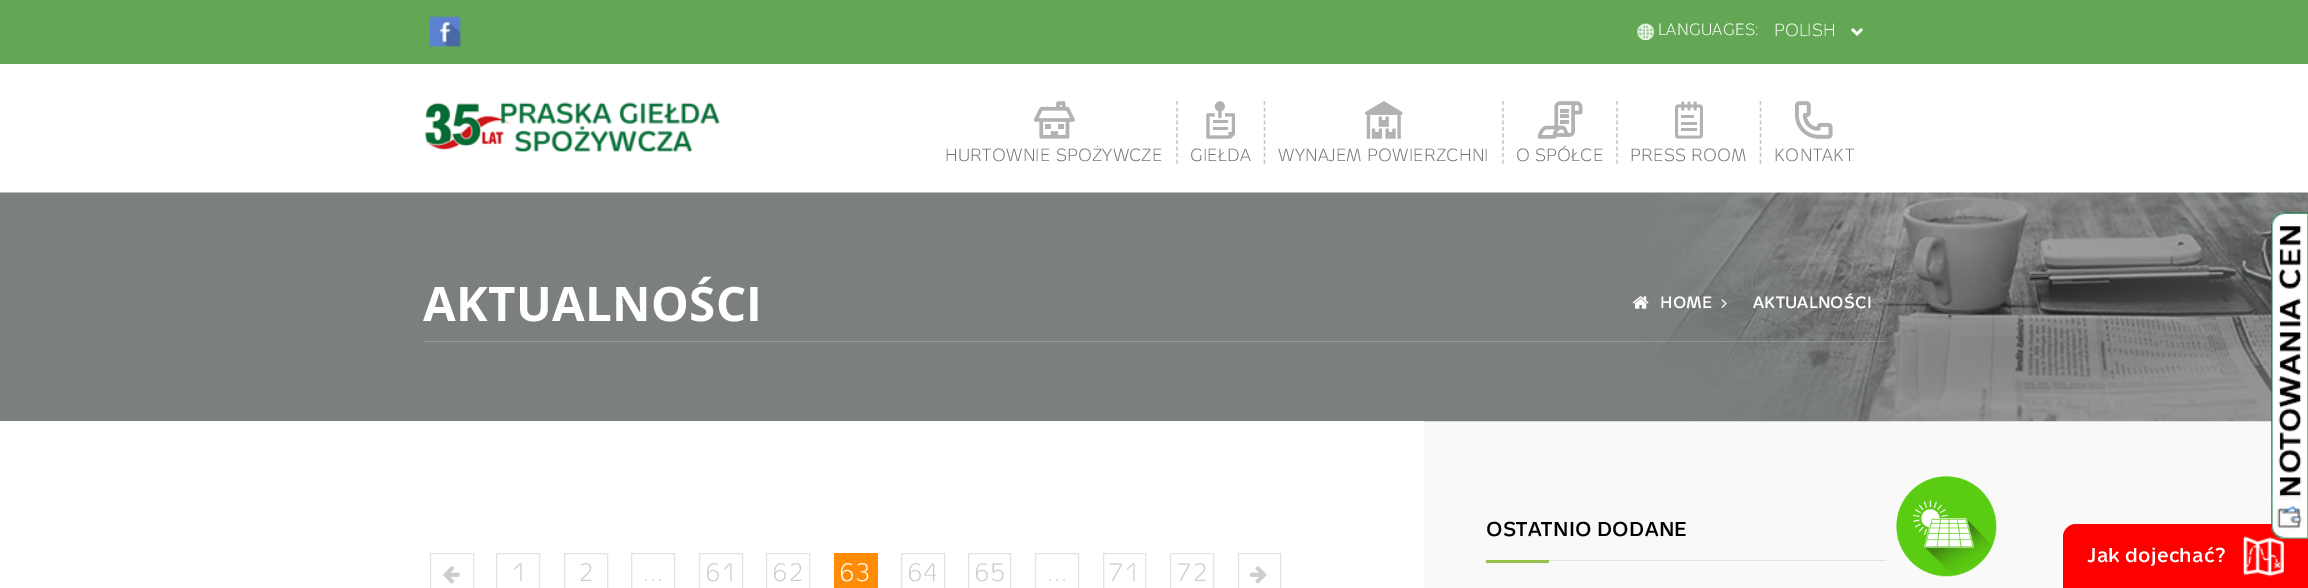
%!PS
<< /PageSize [2308 588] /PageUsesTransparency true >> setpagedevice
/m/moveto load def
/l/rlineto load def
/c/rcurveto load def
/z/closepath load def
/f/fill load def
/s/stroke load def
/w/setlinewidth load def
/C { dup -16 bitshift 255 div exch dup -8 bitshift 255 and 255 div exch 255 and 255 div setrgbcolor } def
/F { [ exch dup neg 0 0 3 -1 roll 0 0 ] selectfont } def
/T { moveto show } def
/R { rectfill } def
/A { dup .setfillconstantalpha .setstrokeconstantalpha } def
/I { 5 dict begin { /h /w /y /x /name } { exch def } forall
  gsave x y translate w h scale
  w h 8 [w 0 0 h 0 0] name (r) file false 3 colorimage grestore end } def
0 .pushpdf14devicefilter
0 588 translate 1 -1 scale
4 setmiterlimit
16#FFFFFF C
0 0 2308 588 R
16#63A754 C
0 0 2308 64 R
(1.rgb) 430 16 32 31 I
(2.rgb) 1637 23 17 17 I
/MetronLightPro-Light 16.25 F
16#FFFFFF C
1658 35 m .3 0 (LANGUAGES:) ashow
2.5 w
1852 29 m 5 5 l 5 -5 l s
/MetronLightPro-Light 17.5 F
(POLISH) 1774 36 T
(3.rgb) 424 102 297 50 I
(4.rgb) 1034 101 41 38 I
16#C3C3C3 C
1.2 w
[3.75 2.78] 0 setdash
1177 101 m 0 63 l s
16#727272 C
945 161 m .3 0 (HURTOWNIE SPOŻYWCZE) ashow
(5.rgb) 1206 101 29 38 I
16#C3C3C3 C
1264.5 101 m 0 63 l s
16#727272 C
1190 161 m .3 0 (GIEŁDA) ashow
(6.rgb) 1365 101 38 38 I
16#C3C3C3 C
1503 101 m 0 63 l s
16#727272 C
1278 161 m .3 0 (WYNAJEM POWIERZCHNI) ashow
(7.rgb) 1538 101 45 38 I
16#C3C3C3 C
1617 101 m 0 63 l s
16#727272 C
1516 161 m .3 0 (O SPÓŁCE) ashow
(8.rgb) 1675 101 28 38 I
16#C3C3C3 C
1760.5 101 m 0 63 l s
16#727272 C
1630 161 m .3 0 (PRESS ROOM) ashow
(9.rgb) 1795 101 38 38 I
1774 161 m .3 0 (KONTAKT) ashow
16#F9F9F9 C
1424 421 848 167 R
(10.rgb) 0 192 2308 230 I
0.2 A
16#FFFFFF C
424 341 1462 1 R
/OpenSans-Bold 47.5 F
1 A
423 321 m .3 0 (AKTUALNOŚCI) ashow
(11.rgb) 1632 296 17 13 I
/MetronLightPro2-Light 16.25 F
1660 308 m .3 0 (HOME) ashow
(12.rgb) 1721 299 6 9 I
1753 308 m .3 0 (AKTUALNOŚCI) ashow
16#FF0000 C
2076 524 m 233 0 l 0 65 l -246 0 l 0 -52 l 0 -7 6 -13 13 -13 c z f
(17.rgb) 2243 536 41 41 I
(13.rgb) 2271 212 37 327 I
16#E2E2E2 C
1549 560 337 1 R
/MetronLightPro2-Light 20 F
16#000000 C
1486 536 m .3 0 (OSTATNIO DODANE) ashow
16#98C04C C
1486 560 63 3 R
16#FFFFFF C
0 421 1424 1 R
16#E2E2E2 C
1 w
[] 0 setdash
430.5 553.5 43 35 rectstroke
(14.rgb) 443 566 17 18 I
496.5 553.5 43 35 rectstroke
/MetronLightPro-Light 25 F
16#CDCDCD C
511 581 m .3 0 (1) ashow
16#E2E2E2 C
564.5 553.5 43 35 rectstroke
16#CDCDCD C
578 581 m .3 0 (2) ashow
16#E2E2E2 C
631.5 553.5 43 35 rectstroke
16#CDCDCD C
643 581 m .3 0 (…) ashow
16#E2E2E2 C
699.5 553.5 43 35 rectstroke
16#CDCDCD C
705 581 m .3 0 (61) ashow
16#E2E2E2 C
766.5 553.5 43 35 rectstroke
16#CDCDCD C
772 581 m .3 0 (62) ashow
16#FF8C04 C
834 553 44 35 R
16#FFFFFF C
839 581 m .3 0 (63) ashow
16#E2E2E2 C
901.5 553.5 43 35 rectstroke
16#CDCDCD C
907 581 m .3 0 (64) ashow
16#E2E2E2 C
968.5 553.5 42 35 rectstroke
16#CDCDCD C
974 581 m .3 0 (65) ashow
16#E2E2E2 C
1035.5 553.5 43 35 rectstroke
16#CDCDCD C
1047 581 m .3 0 (…) ashow
16#E2E2E2 C
1103.5 553.5 42 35 rectstroke
16#CDCDCD C
1108 581 m .3 0 (71) ashow
16#E2E2E2 C
1170.5 553.5 43 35 rectstroke
16#CDCDCD C
1176 581 m .3 0 (72) ashow
16#E2E2E2 C
1238.5 553.5 42 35 rectstroke
(15.rgb) 1250 566 17 18 I
(16.rgb) 1896 476 101 101 I
/MetronLightPro2-Light 20 F
16#FFFFFF C
2088 562 m .3 0 (Jak dojechać?) ashow
.poppdf14devicefilter showpage
